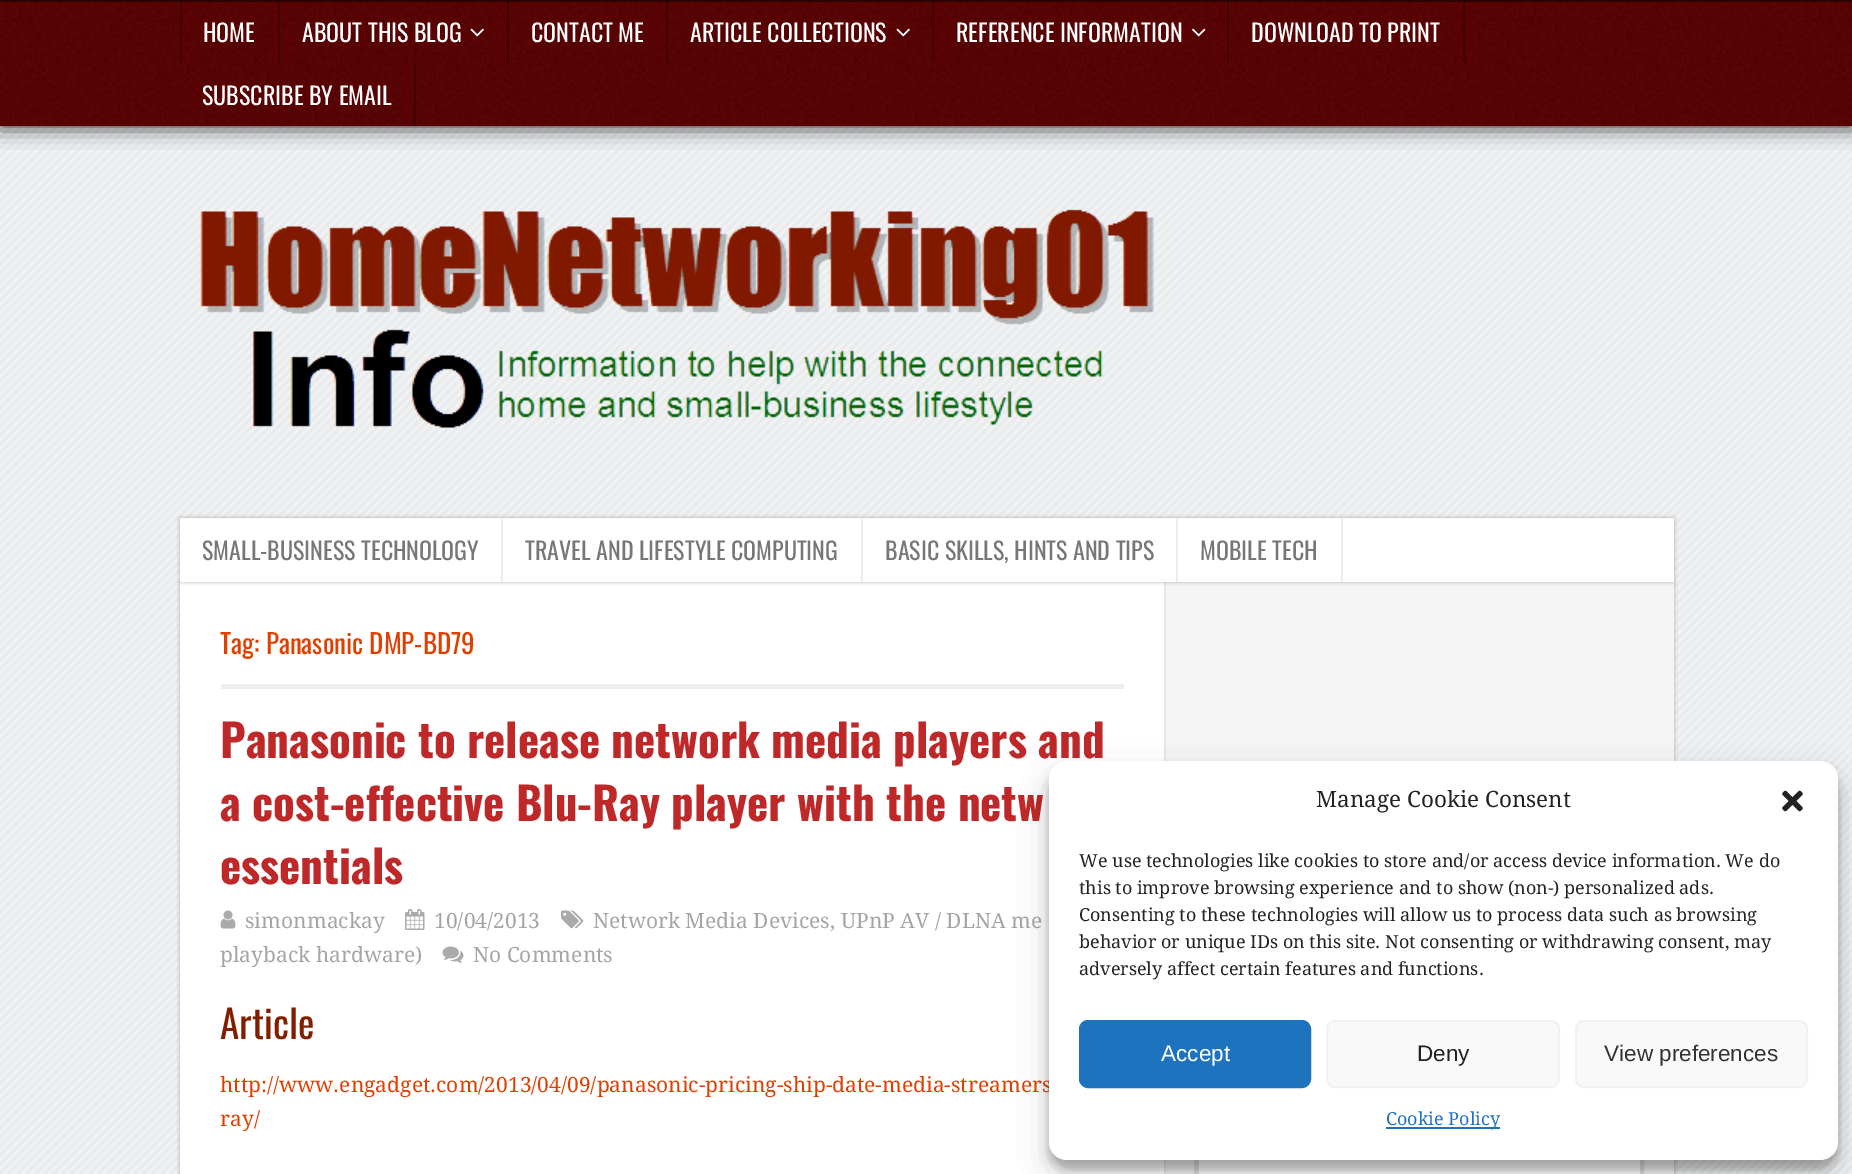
%!PS
<< /PageSize [1852 1174] /PageUsesTransparency true >> setpagedevice
/f/fill load def
/s/stroke load def
/q/gsave load def
/Q_/grestore load def
/w/setlinewidth load def
/C { dup -16 bitshift 255 div exch dup -8 bitshift 255 and 255 div exch 255 and 255 div setrgbcolor } def
/F { [ exch dup neg 0 0 3 -1 roll 0 0 ] selectfont } def
/T { moveto show } def
/R { rectfill } def
/A { dup .setfillconstantalpha .setstrokeconstantalpha } def
/Q { 5 dict begin { /r /h /w /y /x } { exch def } forall
  x r add y moveto x w add y 2 copy h add r arct x w add y h add x 1 index r arct
  x y h add x y r arct x y 2 copy exch w add exch r arct closepath end } def
/S { 12 dict begin { /a /b /q /h /w /y /x } { exch def } forall gsave /was 0 def
  9 -2 -9 { dup b mul 4 div /e exch def 1 sub .425 mul 2.718 exch exp 1 add a .99 .min exch div /now exch def
    1 1 now sub 1 was sub div sub A /was now def
    w h .min e 2 mul add 0 gt { x e sub y e sub w e 2 mul add h e 2 mul add
      q e add b .6 mul add w h .min 2 div e add .min 0 .max Q fill } if } for grestore end } def
/I { 5 dict begin { /h /w /y /x /name } { exch def } forall
  gsave x y translate w h scale
  w h 8 [w 0 0 h 0 0] name (r) file false 3 colorimage grestore end } def
0 .pushpdf14devicefilter
0 1174 translate 1 -1 scale
4 setmiterlimit
16#F0F2F3 C
0 0 1852 1174 R
(1.rgb) 0 126 1852 1048 I
16#000000 C
0 -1 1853 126 0 11 1 S
16#560000 C
0 0 1852 126 R
(2.rgb) 0 0 1852 126 I
0.5 A
16#000000 C
0 0 1852 2 R
0.25 A
278 0 2 63 R
180 0 2 63 R
/Oswald-Regular 24 F
1 A
16#FFFFFF C
(HOME) 203 42 T
0.25 A
16#000000 C
507 0 2 63 R
1 A
16#FFFFFF C
(ABOUT THIS BLOG) 302 42 T
(3.rgb) 470 28 14 9 I
0.25 A
16#000000 C
666 0 2 63 R
1 A
16#FFFFFF C
(CONTACT ME) 531 42 T
0.25 A
16#000000 C
932 0 2 63 R
1 A
16#FFFFFF C
(ARTICLE COLLECTIONS) 690 42 T
(4.rgb) 896 28 14 9 I
0.25 A
16#000000 C
1227 0 2 63 R
1 A
16#FFFFFF C
(REFERENCE INFORMATION) 956 42 T
(5.rgb) 1192 28 14 9 I
0.25 A
16#000000 C
1463 0 2 63 R
1 A
16#FFFFFF C
(DOWNLOAD TO PRINT) 1251 42 T
0.25 A
16#000000 C
414 63 2 63 R
1 A
16#FFFFFF C
(SUBSCRIBE BY EMAIL) 202 105 T
(6.rgb) 200 209 954 219 I
16#000000 C
180 584 1494 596 0 2 .3 S
16#F5F5F5 C
1166 582 508 592 R
16#FFFFFF C
180 582 984 592 R
16#E8E8E8 C
1164 582 2 592 R
16#000000 C
180 518 1494 64 0 2 .3 S
16#FFFFFF C
180 518 1494 64 R
16#EEEEEE C
501 518 2 64 R
16#777777 C
(SMALL-BUSINESS TECHNOLOGY) 202 560 T
16#EEEEEE C
861 518 2 64 R
16#777777 C
(TRAVEL AND LIFESTYLE COMPUTING) 525 560 T
16#EEEEEE C
1176 518 2 64 R
16#777777 C
(BASIC SKILLS, HINTS AND TIPS) 885 560 T
16#EEEEEE C
1341 518 2 64 R
16#777777 C
(MOBILE TECH) 1200 560 T
16#EEEEEE C
221 684 903 5 R
/Oswald-Regular 27 F
16#E03F00 C
(Tag: Panasonic DMP-BD79) 220 654 T
/Oswald-Bold 45 F
16#BF2828 C
(Panasonic to release network media players and) 220 758 T
(a cost-effective Blu-Ray player with the netw) 220 821 T
(essentials) 220 884 T
(7.rgb) 561 910 23 19 I
/DroidSerif-Regular 21 F
16#A5A5A5 C
(Network Media Devices) 593 928 T
(,) 830 928 T
(UPnP AV / DLNA me) 841 928 T
(playback hardware\)) 220 962 T
(8.rgb) 220 910 16 19 I
(simonmackay) 245 928 T
(9.rgb) 405 909 20 21 I
(10/04/2013) 434 928 T
(10.rgb) 442 946 22 17 I
(No Comments) 473 962 T
/Oswald-Regular 39 F
16#821E00 C
(Article) 220 1039 T
/DroidSerif-Regular 21 F
16#E03F00 C
(http://www.engadget.com/2013/04/09/panasonic-pricing-ship-date-media-streamers) 220 1092 T
(ray/) 220 1126 T
16#DDDDDD C
5 w
1196.5 1121.5 445 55 rectstroke
16#FFFFFF C
1199 1160 441 14 R
16#000000 C
1049 770 789 399 18 4.5 .23 S
1049 776 789 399 18 15 .19 S
16#FFFFFF C
1049 761 789 399 18 Q f
/DroidSerif-Regular 22.5 F
16#222222 C
(Manage Cookie Consent) 1316 807 T
(11.rgb) 1782 790 21 22 I
/DroidSerif-Regular 18 F
(We use technologies like cookies to store and/or access device information. We do) 1079 867 T
(this to improve browsing experience and to show \(non-\) personalized ads.) 1079 894 T
(Consenting to these technologies will allow us to process data such as browsing) 1079 921 T
(behavior or unique IDs on this site. Not consenting or withdrawing consent, may) 1079 948 T
(adversely affect certain features and functions.) 1079 975 T
16#1E73BE C
1080 1021 230 66 8 Q q f Q_
2 w
s
/LiberationSans-Regular 22.5 F
16#FFFFFF C
(Accept) 1161 1061 T
16#F9F9F9 C
1327 1021 232 66 8 Q q f Q_
16#F2F2F2 C
s
16#222222 C
(Deny) 1417 1061 T
16#F9F9F9 C
1576 1021 231 66 8 Q q f Q_
16#F2F2F2 C
s
16#333333 C
(View preferences) 1604 1061 T
16#1E73BE C
1386 1127 114 2 R
/DroidSerif-Regular 18 F
(Cookie Policy) 1386 1125 T
.poppdf14devicefilter showpage
